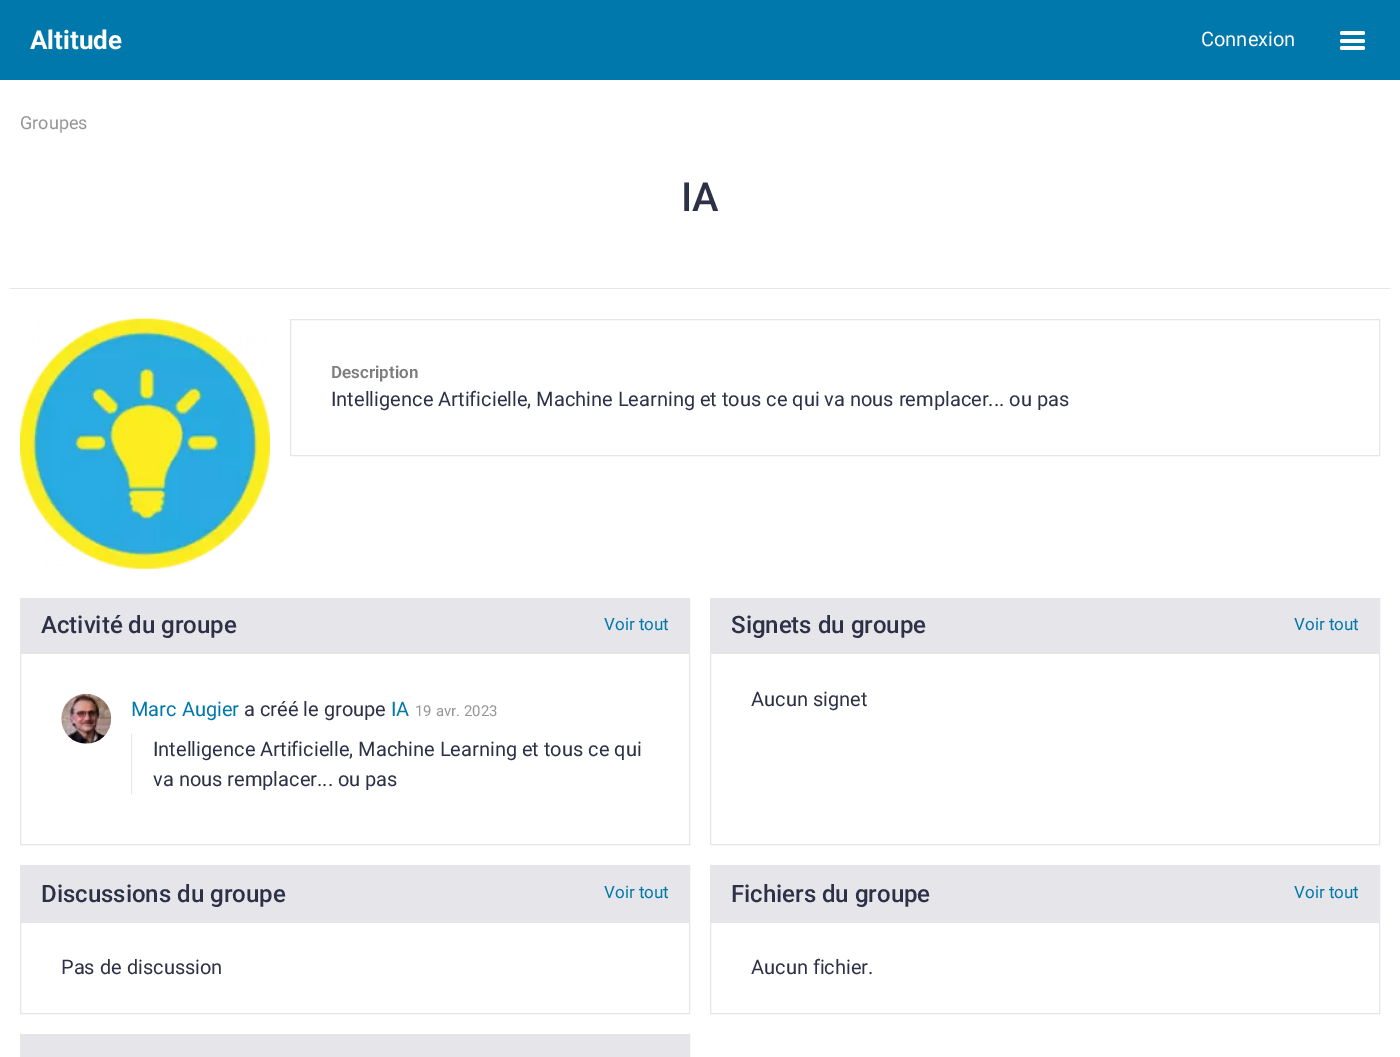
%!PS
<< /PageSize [1400 1057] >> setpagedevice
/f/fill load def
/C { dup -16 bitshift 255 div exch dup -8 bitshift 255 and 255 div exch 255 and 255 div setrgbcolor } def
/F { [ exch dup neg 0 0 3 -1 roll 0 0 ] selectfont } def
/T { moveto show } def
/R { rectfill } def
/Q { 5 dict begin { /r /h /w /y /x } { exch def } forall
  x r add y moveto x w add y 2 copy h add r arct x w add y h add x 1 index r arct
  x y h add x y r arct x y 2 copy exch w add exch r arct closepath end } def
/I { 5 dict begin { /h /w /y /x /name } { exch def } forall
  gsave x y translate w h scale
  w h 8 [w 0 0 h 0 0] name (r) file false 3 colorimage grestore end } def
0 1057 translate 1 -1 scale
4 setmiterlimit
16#FFFFFF C
0 0 1400 1057 R
16#0078AC C
0 0 1400 80 R
/Roboto-Bold 26 F
16#FFFFFF C
(Altitude) 30 49 T
/Roboto-Regular 20 F
(Connexion) 1201 46 T
1340 31 25 4 2 Q f
1340 39 25 4 2 Q f
1340 46 25 4 2 Q f
/Roboto-Regular 18 F
16#969696 C
(Groupes) 20 129 T
16#E6E6EA C
10 288 1380 1 R
/Roboto-Medium 40 F
16#2D3047 C
(IA) 681 211 T
(1.rgb) 20 318 250 251 I
16#E6E6EA C
290.5 319.5 1089 136 rectstroke
/Roboto-SemiBold 17 F
16#7D7D7D C
(Description) 331 378 T
/Roboto-Regular 20 F
16#2D3047 C
(Intelligence Artificielle, Machine Learning et tous ce qui va nous remplacer... ou pas) 331 406 T
16#E6E6EA C
20.5 598.5 669 246 rectstroke
21 599 668 55 R
/Roboto-Medium 24 F
16#2D3047 C
(Activité du groupe) 41 633 T
/Roboto-Regular 17 F
16#0078AC C
(Voir tout) 604 630 T
(2.rgb) 61 693 51 51 I
/Roboto-Regular 20 F
(Marc Augier) 131 716 T
16#2D3047 C
(a créé le groupe) 244 716 T
16#0078AC C
(IA) 391 716 T
/Roboto-Regular 15 F
16#969696 C
(19 avr. 2023) 415 716 T
16#E6E6EA C
131 734 1 60 R
/Roboto-Regular 20 F
16#2D3047 C
(Intelligence Artificielle, Machine Learning et tous ce qui) 153 756 T
(va nous remplacer... ou pas) 153 786 T
16#E6E6EA C
710.5 598.5 669 246 rectstroke
711 599 668 55 R
/Roboto-Medium 24 F
16#2D3047 C
(Signets du groupe) 731 633 T
/Roboto-Regular 17 F
16#0078AC C
(Voir tout) 1294 630 T
/Roboto-Regular 20 F
16#2D3047 C
(Aucun signet) 751 706 T
16#E6E6EA C
20.5 865.5 669 148 rectstroke
21 866 668 57 R
/Roboto-Medium 24 F
16#2D3047 C
(Discussions du groupe) 41 902 T
/Roboto-Regular 17 F
16#0078AC C
(Voir tout) 604 898 T
/Roboto-Regular 20 F
16#2D3047 C
(Pas de discussion) 61 974 T
16#E6E6EA C
710.5 865.5 669 148 rectstroke
711 866 668 57 R
/Roboto-Medium 24 F
16#2D3047 C
(Fichiers du groupe) 731 902 T
/Roboto-Regular 17 F
16#0078AC C
(Voir tout) 1294 898 T
/Roboto-Regular 20 F
16#2D3047 C
(Aucun fichier.) 751 974 T
16#E6E6EA C
20.5 1034.5 669 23 rectstroke
21 1035 668 22 R
showpage
